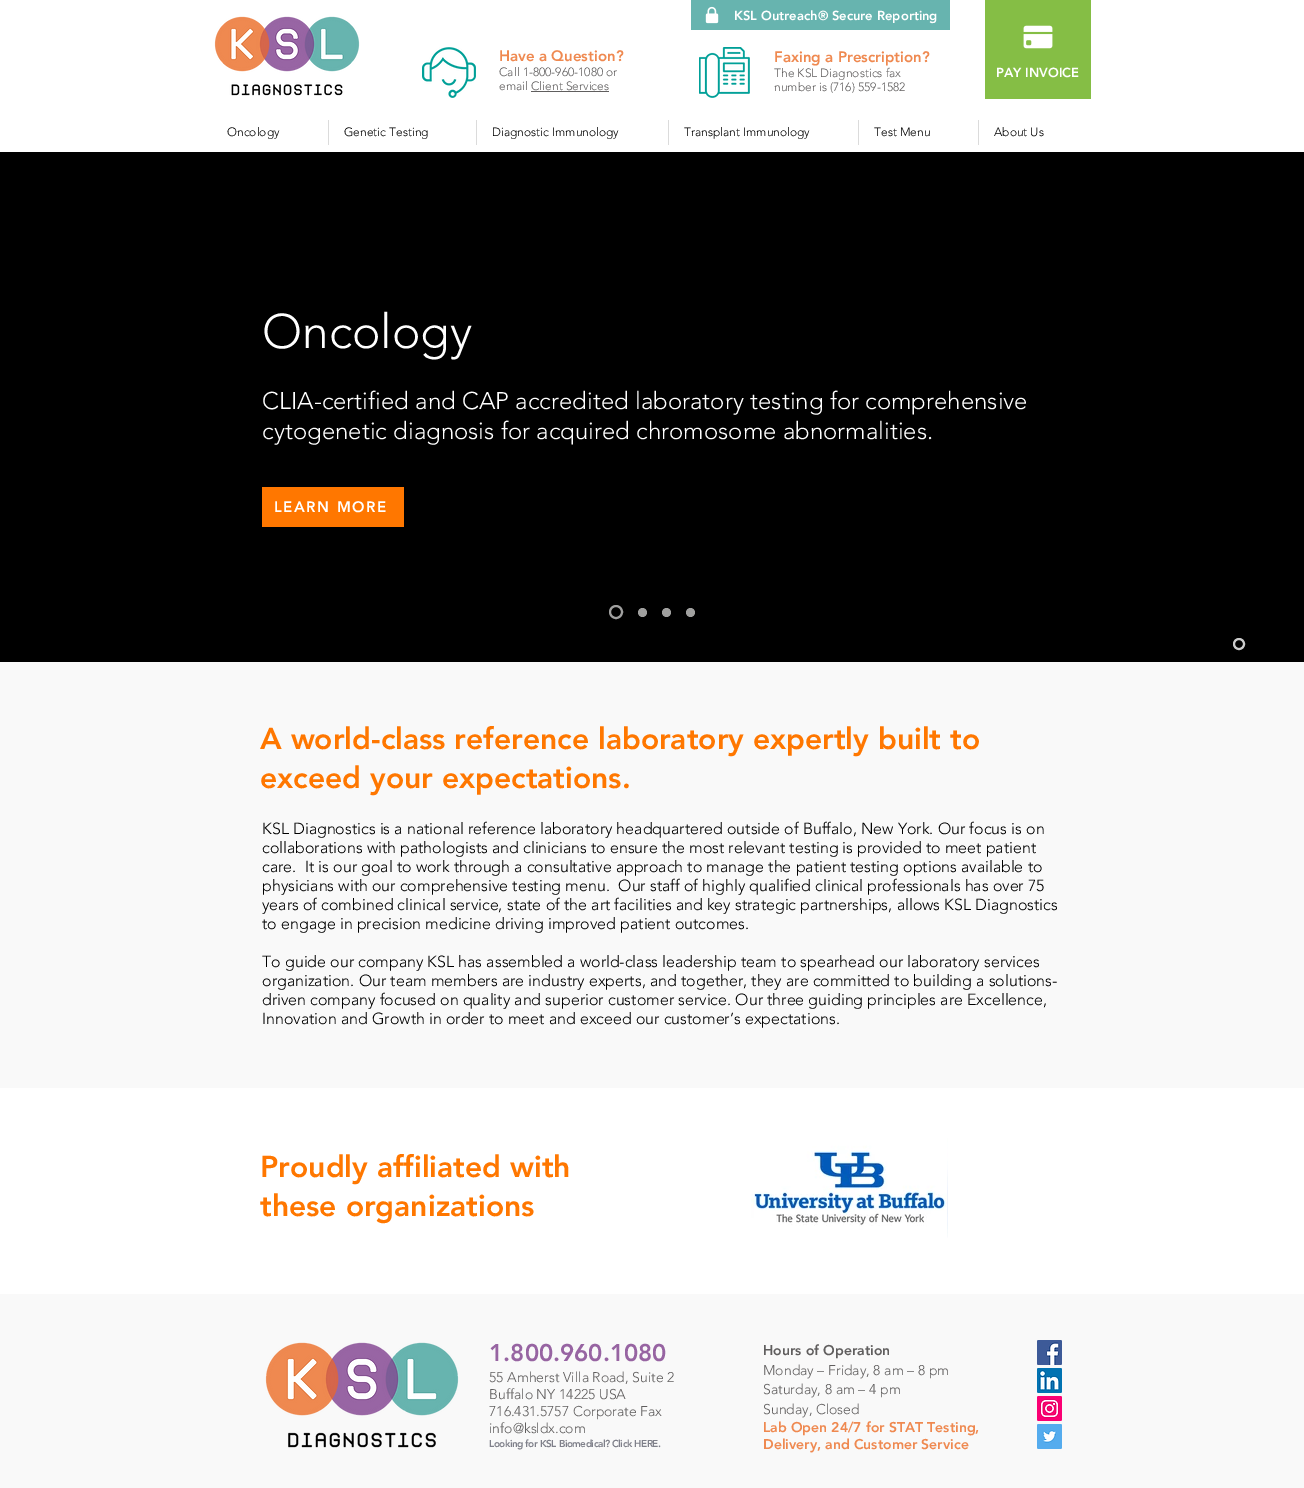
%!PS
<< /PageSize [1304 1488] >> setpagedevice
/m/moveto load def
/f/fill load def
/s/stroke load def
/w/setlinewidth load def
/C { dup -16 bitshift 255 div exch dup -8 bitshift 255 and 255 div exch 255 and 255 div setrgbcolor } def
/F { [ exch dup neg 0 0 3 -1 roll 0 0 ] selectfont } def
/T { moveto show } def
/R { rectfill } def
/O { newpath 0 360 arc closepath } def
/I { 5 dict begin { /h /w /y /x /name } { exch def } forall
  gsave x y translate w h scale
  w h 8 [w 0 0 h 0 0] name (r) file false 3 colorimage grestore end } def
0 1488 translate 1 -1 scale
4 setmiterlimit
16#F9F9F9 C
0 0 1304 1488 R
16#FFFFFF C
0 0 1304 152 R
(1.rgb) 214 16 146 80 I
(2.rgb) 422 47 54 51 I
/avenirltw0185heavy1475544-Black 15 F
16#EF8950 C
(Have a Question?) 499 61 T
/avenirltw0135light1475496-Light 12 F
16#605E5E C
(Call 1-800-960-1080 or) 499 76 T
(email Client Services) 499 90 T
531 91 78 1 R
(3.rgb) 699 47 51 51 I
16#67B4AF C
691 0 259 30 R
(4.rgb) 705 6 14 18 I
/avenirltw0185heavy1475544-Black 13 F
16#FFFFFF C
(KSL Outreach® Secure Reporting) 734 20 T
/avenirltw0185heavy1475544-Black 15 F
16#EF8950 C
(Faxing a Prescription?) 774 62 T
/avenirltw0135light1475496-Light 12 F
16#605E5E C
(The KSL Diagnostics fax) 774 77 T
(number is \(716\) 559-1582) 774 91 T
16#85BE45 C
985 0 106 99 R
(5.rgb) 1023 25 30 24 I
/avenirltw0185heavy1475544-Black 13 F
16#FFFFFF C
(PAY INVOICE) 996 77 T
/avenirltw0135light1475496-Light 12 F
16#000000 C
(Oncology) 227 136 T
16#DBDBDB C
328 120 1 25 R
16#000000 C
(Genetic Testing) 344 136 T
16#DBDBDB C
476 120 1 25 R
16#000000 C
(Diagnostic Immunology) 492 136 T
16#DBDBDB C
668 120 1 25 R
16#000000 C
(Transplant Immunology) 684 136 T
16#DBDBDB C
858 120 1 25 R
16#000000 C
(Test Menu) 874 136 T
16#DBDBDB C
978 120 1 25 R
16#000000 C
(About Us) 994 136 T
0 152 1304 510 R
/avenirltw0135light1475496-Light 48 F
16#FFFFFF C
(Oncology) 262 348 T
/avenirltw0135light1475496-Light 24 F
(CLIA-certified and CAP accredited laboratory testing for comprehensive) 262 409 T
(cytogenetic diagnosis for acquired chromosome abnormalities.) 262 439 T
16#FF7700 C
262 487 142 40 R
/avenirltw0185heavy1475544-Black 15 F
16#FFFFFF C
274 512 m 1.5 0 (LEARN MORE) ashow
16#A0A09F C
2 w
616 612 6 O s
642.5 612.5 4.5 O f
666.5 612.5 4.5 O f
690.5 612.5 4.5 O f
/avenirltw0185heavy1475544-Black 30 F
16#FF7700 C
(A world-class reference laboratory expertly built to) 260 749 T
(exceed your expectations.) 260 788 T
/avenirltw0135light1475496-Light 16 F
16#000000 C
(KSL Diagnostics is a national reference laboratory headquartered outside of Buffalo, New York. Our focus is on) 262 834 T
(collaborations with pathologists and clinicians to ensure the most relevant testing is provided to meet patient) 262 853 T
(care.  It is our goal to work through a consultative approach to manage the patient testing options available to) 262 872 T
(physicians with our comprehensive testing menu.  Our staff of highly qualified clinical professionals has over 75) 262 891 T
(years of combined clinical service, state of the art facilities and key strategic partnerships, allows KSL Diagnostics) 262 910 T
(to engage in precision medicine driving improved patient outcomes.) 262 929 T
(To guide our company KSL has assembled a world-class leadership team to spearhead our laboratory services) 262 967 T
(organization. Our team members are industry experts, and together, they are committed to building a solutions-) 262 986 T
(driven company focused on quality and superior customer service. Our three guiding principles are Excellence,) 262 1005 T
(Innovation and Growth in order to meet and exceed our customer’s expectations.) 262 1024 T
16#FFFFFF C
0 1088 1304 206 R
/avenirltw0185heavy1475544-Black 30 F
16#FF7700 C
(Proudly affiliated with) 260 1177 T
(these organizations) 260 1216 T
(6.rgb) 751 1138 196 100 I
(7.rgb) 947 1138 1 100 I
16#CCCCCC C
1239 644 5 O s
(8.rgb) 265 1342 194 106 I
/avenirltw0185heavy1475544-Black 24 F
16#9764A2 C
(1.800.960.1080) 489 1361 T
/avenirltw0135light1475496-Light 14 F
16#605E5E C
(55 Amherst Villa Road, Suite 2) 489 1382 T
(Buffalo NY 14225 USA) 489 1399 T
(716.431.5757 Corporate Fax) 489 1416 T
(info@ksldx.com) 489 1433 T
/avenirltw0185heavy1475544-Black 10 F
16#7F808A C
489 1447 m -.5 0 (Looking for KSL Biomedical? Click HERE.) ashow
/avenirltw0185heavy1475544-Black 14 F
16#605E5E C
(Hours of Operation) 763 1355 T
/avenirltw0135light1475496-Light 14 F
(Monday – Friday, 8 am – 8 pm) 763 1375 T
(Saturday, 8 am – 4 pm) 763 1394 T
(Sunday, Closed) 763 1414 T
/avenirltw0185heavy1475544-Black 14 F
16#EF8950 C
(Lab Open 24/7 for STAT Testing,) 763 1432 T
(Delivery, and Customer Service) 763 1449 T
(9.rgb) 1037 1340 25 25 I
(10.rgb) 1037 1368 25 25 I
(11.rgb) 1037 1396 25 25 I
(12.rgb) 1037 1424 25 25 I
showpage
